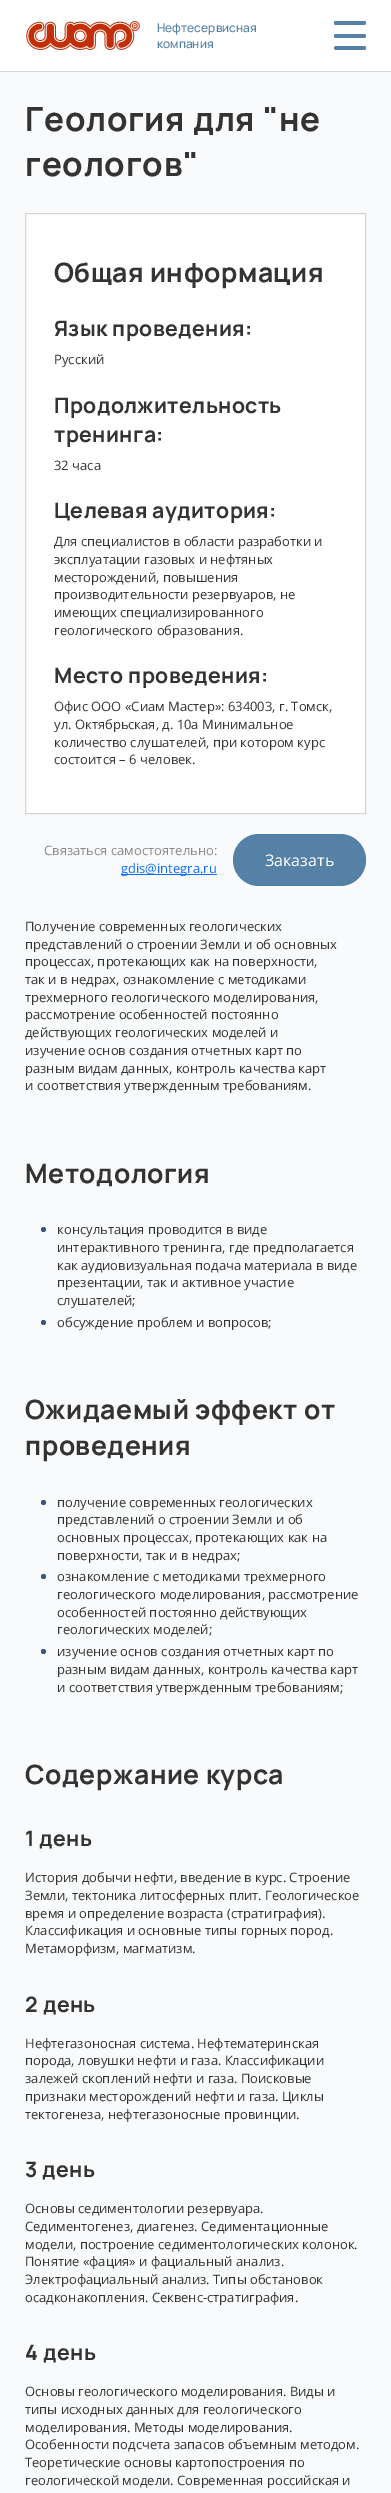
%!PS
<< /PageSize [391 2493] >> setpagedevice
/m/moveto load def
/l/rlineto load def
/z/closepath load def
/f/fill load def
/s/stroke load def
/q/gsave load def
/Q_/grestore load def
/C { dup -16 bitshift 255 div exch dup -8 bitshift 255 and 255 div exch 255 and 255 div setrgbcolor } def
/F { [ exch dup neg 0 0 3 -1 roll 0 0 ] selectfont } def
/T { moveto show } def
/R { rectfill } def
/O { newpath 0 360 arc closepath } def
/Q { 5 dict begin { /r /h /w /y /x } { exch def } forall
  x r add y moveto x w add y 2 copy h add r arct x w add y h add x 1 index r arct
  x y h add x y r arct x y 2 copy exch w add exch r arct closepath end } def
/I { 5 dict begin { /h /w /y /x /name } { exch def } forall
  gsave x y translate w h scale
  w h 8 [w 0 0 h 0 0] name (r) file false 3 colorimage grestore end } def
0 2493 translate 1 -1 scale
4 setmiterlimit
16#F9FAFB C
0 0 391 2493 R
16#FFFFFF C
0 0 391 71 R
16#D7D7D7 C
0 71 391 1 R
(1.rgb) 26 21 114 29 I
/Manrope-Medium 12 F
16#5681A6 C
(Нефтесервисная) 157 32 T
(компания) 157 48 T
334 34 32 4 2 Q f
334 21 32 4 2 Q f
334 46 32 4 2 Q f
/Manrope-Bold 33.25 F
16#333333 C
25 131 m .7 0 (Геология для "не) ashow
25 176 m .7 0 (геологов") ashow
16#FFFFFF C
25.5 213.5 m 340 0 l 0 600 l -340 0 l z q f Q_
16#D6D6D6 C
s
/Manrope-Bold 26.6 F
16#333333 C
54 282 m .5 0 (Общая информация) ashow
/Manrope-Bold 21.25 F
54 336 m .4 0 (Язык проведения:) ashow
/OpenSans-Regular 13 F
(Русский) 54 364 T
/Manrope-Bold 21.25 F
54 413 m .4 0 (Продолжительность) ashow
54 442 m .4 0 (тренинга:) ashow
/OpenSans-Regular 13 F
(32 часа) 54 470 T
/Manrope-Bold 21.25 F
54 518 m .4 0 (Целевая аудитория:) ashow
/OpenSans-Regular 13 F
(Для специалистов в области разработки и) 54 546 T
(эксплуатации газовых и нефтяных) 54 564 T
(месторождений, повышения) 54 582 T
(производительности резервуаров, не) 54 599 T
(имеющих специализированного) 54 617 T
(геологического образования.) 54 635 T
/Manrope-Bold 21.25 F
54 683 m .4 0 (Место проведения:) ashow
/OpenSans-Regular 13 F
(Офис ООО «Сиам Мастер»: 634003, г. Томск,) 54 711 T
(ул. Октябрьская, д. 10а Минимальное) 54 729 T
(количество слушателей, при котором курс) 54 747 T
(состоится – 6 человек.) 54 764 T
16#898989 C
(Связаться самостоятельно:) 44 855 T
16#0D6EFD C
121 874 96 1 R
(gdis@integra.ru) 121 873 T
16#5681A6 C
233 834 133 52 26 Q f
/OpenSans-Regular 16 F
16#FFFFFF C
(Заказать) 265 866 T
/OpenSans-Regular 13 F
16#333333 C
(Получение современных геологических) 25 931 T
(представлений о строении Земли и об основных) 25 949 T
(процессах, протекающих как на поверхности,) 25 966 T
(так и в недрах, ознакомление с методиками) 25 984 T
(трехмерного геологического моделирования,) 25 1002 T
(рассмотрение особенностей постоянно) 25 1019 T
(действующих геологических моделей и) 25 1037 T
(изучение основ создания отчетных карт по) 25 1055 T
(разным видам данных, контроль качества карт) 25 1073 T
(и соответствия утвержденным требованиям.) 25 1090 T
/Manrope-Bold 26.6 F
25 1183 m .5 0 (Методология) ashow
16#365581 C
43.5 1229.5 2.5 O f
/OpenSans-Regular 13 F
16#333333 C
(консультация проводится в виде) 57 1234 T
(интерактивного тренинга, где предполагается) 57 1252 T
(как аудиовизуальная подача материала в виде) 57 1270 T
(презентации, так и активное участие) 57 1287 T
(слушателей;) 57 1305 T
16#365581 C
43.5 1322.5 2.5 O f
16#333333 C
(обсуждение проблем и вопросов;) 57 1327 T
/Manrope-Bold 26.6 F
25 1419 m .5 0 (Ожидаемый эффект от) ashow
25 1455 m .5 0 (проведения) ashow
16#365581 C
43.5 1502.5 2.5 O f
/OpenSans-Regular 13 F
16#333333 C
(получение современных геологических) 57 1507 T
(представлений о строении Земли и об) 57 1524 T
(основных процессах, протекающих как на) 57 1542 T
(поверхности, так и в недрах;) 57 1560 T
16#365581 C
43.5 1576.5 2.5 O f
16#333333 C
(ознакомление с методиками трехмерного) 57 1581 T
(геологического моделирования, рассмотрение) 57 1599 T
(особенностей постоянно действующих) 57 1617 T
(геологических моделей;) 57 1634 T
16#365581 C
43.5 1651.5 2.5 O f
16#333333 C
(изучение основ создания отчетных карт по) 57 1656 T
(разным видам данных, контроль качества карт) 57 1674 T
(и соответствия утвержденным требованиям;) 57 1692 T
/Manrope-Bold 26.6 F
25 1784 m .5 0 (Содержание курса) ashow
/Manrope-Bold 21.25 F
25 1846 m .4 0 (1 день) ashow
/OpenSans-Regular 13 F
(История добычи нефти, введение в курс. Строение) 25 1882 T
(Земли, тектоника литосферных плит. Геологическое) 25 1900 T
(время и определение возраста \(стратиграфия\).) 25 1918 T
(Классификация и основные типы горных пород.) 25 1935 T
(Метаморфизм, магматизм.) 25 1953 T
/Manrope-Bold 21.25 F
25 2012 m .4 0 (2 день) ashow
/OpenSans-Regular 13 F
(Нефтегазоносная система. Нефтематеринская) 25 2048 T
(порода, ловушки нефти и газа. Классификации) 25 2065 T
(залежей скоплений нефти и газа. Поисковые) 25 2083 T
(признаки месторождений нефти и газа. Циклы) 25 2101 T
(тектогенеза, нефтегазоносные провинции.) 25 2119 T
/Manrope-Bold 21.25 F
25 2177 m .4 0 (3 день) ashow
/OpenSans-Regular 13 F
(Основы седиментологии резервуара.) 25 2213 T
(Седиментогенез, диагенез. Седиментационные) 25 2231 T
(модели, построение седиментологических колонок.) 25 2249 T
(Понятие «фация» и фациальный анализ.) 25 2266 T
(Электрофациальный анализ. Типы обстановок) 25 2284 T
(осадконакопления. Секвенс-стратиграфия.) 25 2302 T
/Manrope-Bold 21.25 F
25 2360 m .4 0 (4 день) ashow
/OpenSans-Regular 13 F
(Основы геологического моделирования. Виды и) 25 2396 T
(типы исходных данных для геологического) 25 2414 T
(моделирования. Методы моделирования.) 25 2432 T
(Особенности подсчета запасов объемным методом.) 25 2449 T
(Теоретические основы картопостроения по) 25 2467 T
(геологической модели. Современная российская и) 25 2485 T
showpage
